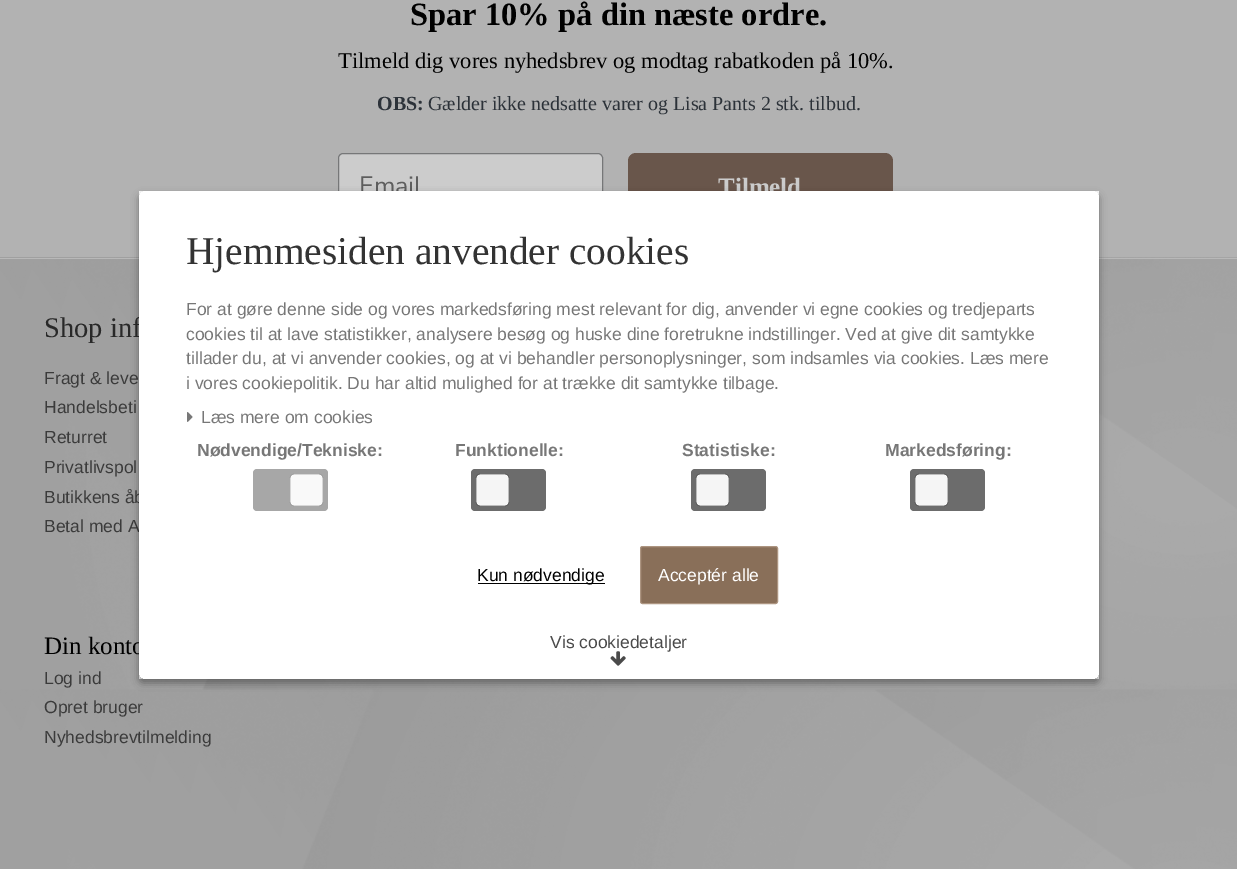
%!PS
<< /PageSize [1237 869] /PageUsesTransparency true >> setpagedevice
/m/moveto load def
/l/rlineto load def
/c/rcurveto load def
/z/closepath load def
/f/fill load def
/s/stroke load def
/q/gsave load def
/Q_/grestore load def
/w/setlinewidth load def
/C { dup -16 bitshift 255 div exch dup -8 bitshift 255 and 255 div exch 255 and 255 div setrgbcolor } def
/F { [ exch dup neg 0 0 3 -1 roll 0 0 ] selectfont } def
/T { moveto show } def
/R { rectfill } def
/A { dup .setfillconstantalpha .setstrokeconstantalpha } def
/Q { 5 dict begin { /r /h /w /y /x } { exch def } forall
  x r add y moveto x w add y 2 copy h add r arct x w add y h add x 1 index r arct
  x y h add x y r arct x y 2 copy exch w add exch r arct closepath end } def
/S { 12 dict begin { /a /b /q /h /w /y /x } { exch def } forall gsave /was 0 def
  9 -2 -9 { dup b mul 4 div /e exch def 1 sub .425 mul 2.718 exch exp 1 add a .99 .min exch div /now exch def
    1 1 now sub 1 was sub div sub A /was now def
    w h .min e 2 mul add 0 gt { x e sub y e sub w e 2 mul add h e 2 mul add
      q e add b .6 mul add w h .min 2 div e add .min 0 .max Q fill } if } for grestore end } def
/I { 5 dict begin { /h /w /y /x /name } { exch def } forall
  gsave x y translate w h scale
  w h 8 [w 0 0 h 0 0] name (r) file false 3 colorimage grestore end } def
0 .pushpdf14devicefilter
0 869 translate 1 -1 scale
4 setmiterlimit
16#B2B2B2 C
0 0 1237 869 R
/LiberationSerif-Bold 32.5 F
16#000000 C
(Spar 10% på din næste ordre.) 410 25 T
/LiberationSerif-Regular 22.5 F
(Tilmeld dig vores nyhedsbrev og modtag rabatkoden på 10%.) 338 68 T
/LiberationSerif-Bold 20 F
16#2C3239 C
(OBS:) 377 110 T
/LiberationSerif-Regular 20 F
(Gælder ikke nedsatte varer og Lisa Pants 2 stk. tilbud.) 428 110 T
16#CCCCCC C
338.5 153.5 264 66 4.5 Q q f Q_
16#767778 C
s
/NunitoSans-Regular 25 F
16#5E5E5E C
(Email) 359 194 T
16#69564B C
628 153 265 67 8 Q f
/LiberationSerif-Bold 25 F
16#CCCCCC C
(Tilmeld) 718 195 T
(1.rgb) 0 257 1237 612 I
16#B8B8B8 C
0 258 1237 1 R
/LiberationSerif-Regular 28.5 F
16#292929 C
(Shop inf) 44 337 T
/LiberationSans-Regular 17.5 F
16#3B3B3B C
(Fragt & leve) 44 384 T
(Handelsbeti) 44 413 T
(Returret) 44 443 T
(Privatlivspol) 44 473 T
(Butikkens åb) 44 503 T
(Betal med A) 44 532 T
/LiberationSerif-Regular 25 F
16#000000 C
(Din konto) 44 654 T
/LiberationSans-Regular 17.5 F
16#3B3B3B C
(Log ind) 44 684 T
(Opret bruger) 44 713 T
(Nyhedsbrevtilmelding) 44 743 T
16#FFFFFF C
139 191 960 488 R
q
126 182 m 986 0 l 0 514 l -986 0 l z 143 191 m 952 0 l 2 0 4 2 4 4 c 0 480 l 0 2 -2 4 -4 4 c -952 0 l -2 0 -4 -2 -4 -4 c 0 -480 l 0 -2 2 -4 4 -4 c z eoclip newpath
16#000000 C
139 195 960 488 4 4 .23 S
139 195 960 488 4 4 .16 S
Q_
/LiberationSerif-Regular 39.4 F
16#333333 C
(Hjemmesiden anvender cookies) 186 264 T
/LiberationSans-Regular 17.5 F
16#777777 C
(For at gøre denne side og vores markedsføring mest relevant for dig, anvender vi egne cookies og tredjeparts) 186 315 T
(cookies til at lave statistikker, analysere besøg og huske dine foretrukne indstillinger. Ved at give dit samtykke) 186 340 T
(tillader du, at vi anvender cookies, og at vi behandler personoplysninger, som indsamles via cookies. Læs mere) 186 364 T
(i vores cookiepolitik. Du har altid mulighed for at trække dit samtykke tilbage.) 186 389 T
(2.rgb) 187 412 6 10 I
(Læs mere om cookies) 201 423 T
/LiberationSans-Bold 17.5 F
(Nødvendige/Tekniske:) 197 456 T
16#A7A7A7 C
253 469 75 42 4 Q f
16#797979 C
.2 w
290.1 474.1 32.8 31.8 3.9 Q s
16#F9F9F9 C
290.1 474.1 32.8 31.8 3.9 Q q f Q_
16#797979 C
s
16#777777 C
(Funktionelle:) 455 456 T
16#6C6C6C C
471 469 75 42 4 Q f
16#202020 C
476.1 474.1 32.8 31.8 3.9 Q s
16#F5F5F5 C
476.1 474.1 32.8 31.8 3.9 Q q f Q_
16#202020 C
s
16#777777 C
(Statistiske:) 682 456 T
16#6C6C6C C
691 469 75 42 4 Q f
16#202020 C
696.1 474.1 32.8 31.8 3.9 Q s
16#F5F5F5 C
696.1 474.1 32.8 31.8 3.9 Q q f Q_
16#202020 C
s
16#777777 C
(Markedsføring:) 885 456 T
16#6C6C6C C
910 469 75 42 4 Q f
16#202020 C
915.1 474.1 32.8 31.8 3.9 Q s
16#F5F5F5 C
915.1 474.1 32.8 31.8 3.9 Q q f Q_
16#202020 C
s
16#000000 C
478 583 127 1 R
/LiberationSans-Regular 17.5 F
(Kun nødvendige) 477 581 T
16#896F59 C
640.5 546.5 137 57 2 Q q f Q_
16#AD9581 C
1 w
s
16#FFFFFF C
(Acceptér alle) 658 581 T
16#4A4A4A C
(Vis cookiedetaljer) 550 648 T
(3.rgb) 610 651 16 15 I
.poppdf14devicefilter showpage
